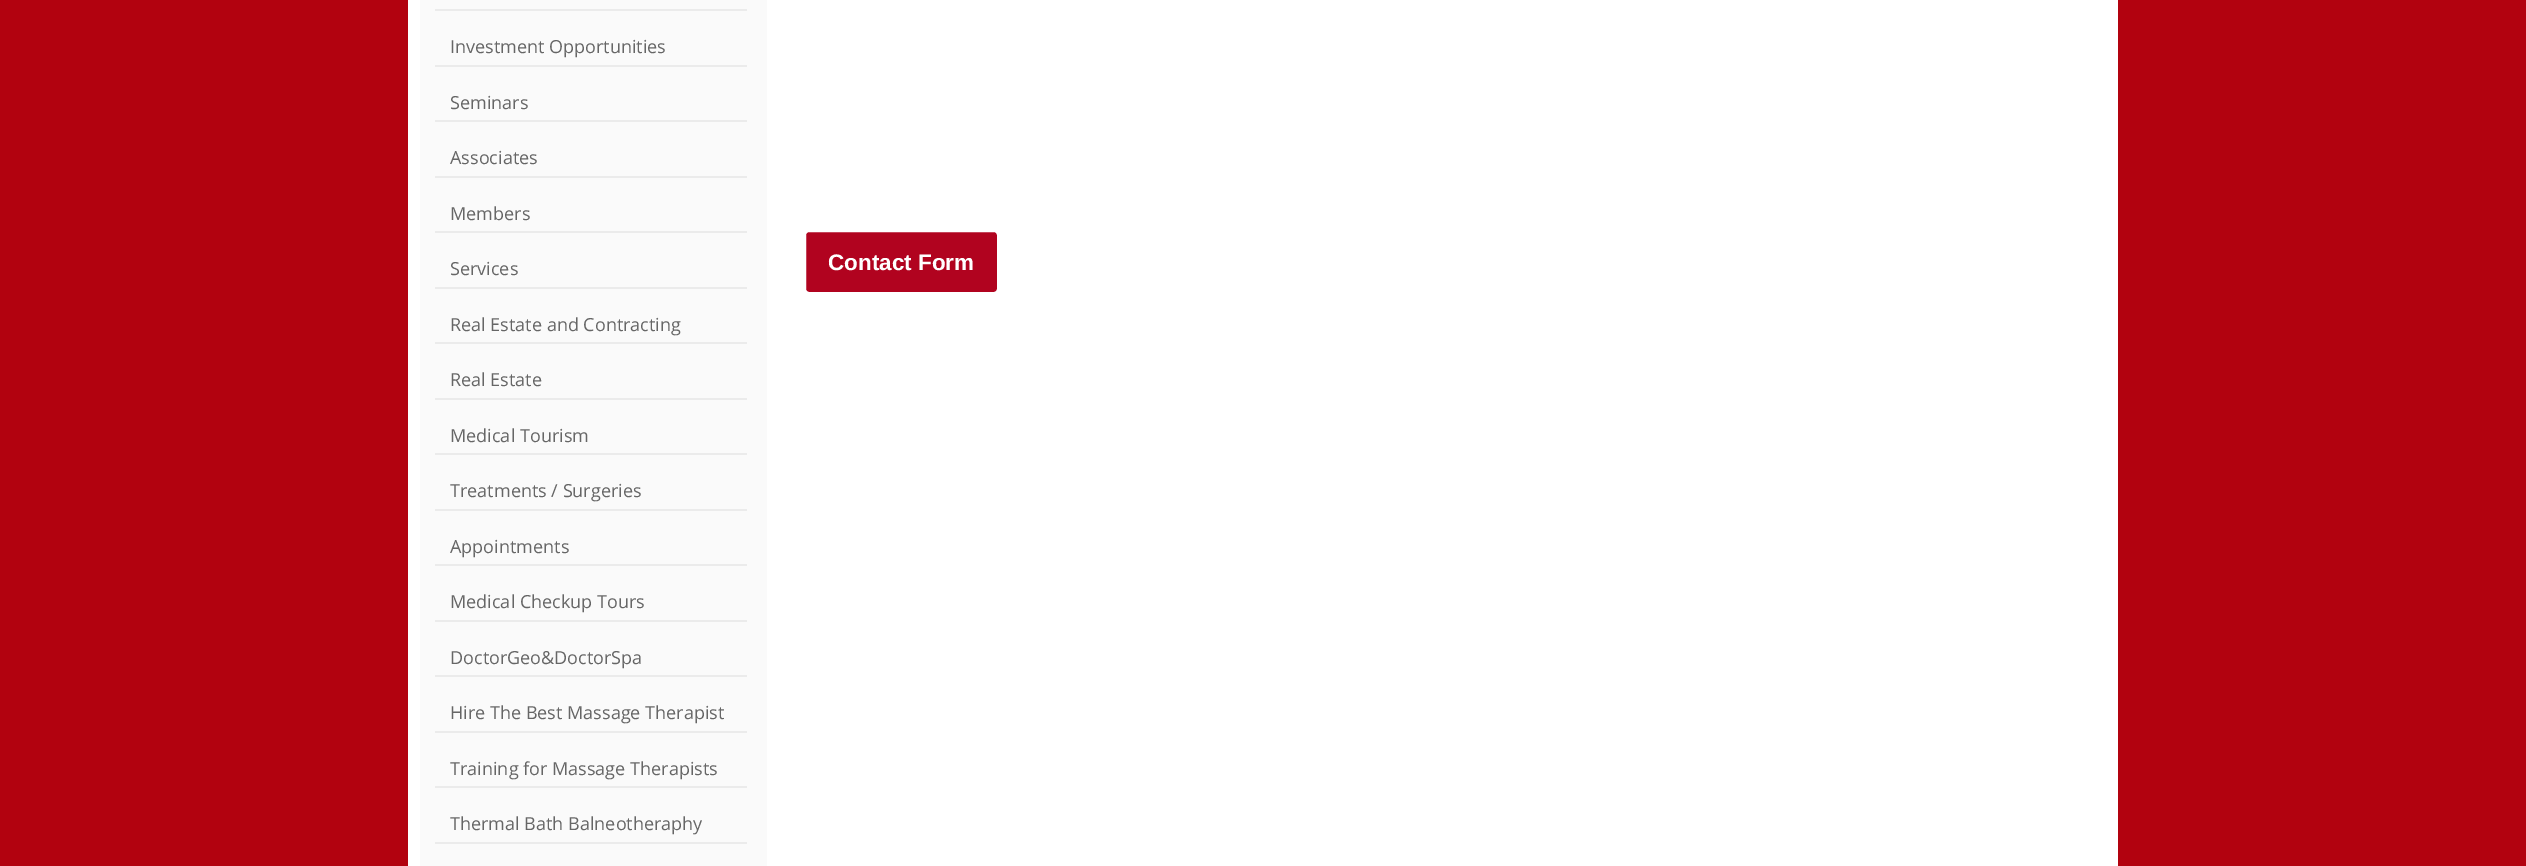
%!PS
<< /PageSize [2526 866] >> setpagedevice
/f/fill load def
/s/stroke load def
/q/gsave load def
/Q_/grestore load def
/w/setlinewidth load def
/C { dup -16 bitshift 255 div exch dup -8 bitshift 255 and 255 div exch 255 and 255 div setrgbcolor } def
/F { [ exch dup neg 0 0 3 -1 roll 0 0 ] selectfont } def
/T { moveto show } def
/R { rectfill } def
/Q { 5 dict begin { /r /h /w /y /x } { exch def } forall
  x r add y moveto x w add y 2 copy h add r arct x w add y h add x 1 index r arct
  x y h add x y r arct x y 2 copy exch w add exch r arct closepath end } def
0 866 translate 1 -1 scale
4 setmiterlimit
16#B2020F C
0 0 2526 866 R
16#FFFFFF C
408 0 1710 866 R
16#FAFAFA C
420 0 347 866 R
16#EBEBEB C
435 9 312 2 R
435 65 312 2 R
/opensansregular-Regular 18 F
16#666666 C
(Investment Opportunities) 450 53 T
16#EBEBEB C
435 120 312 2 R
16#666666 C
(Seminars) 450 109 T
16#EBEBEB C
435 176 312 2 R
16#666666 C
(Associates) 450 164 T
16#EBEBEB C
435 231 312 2 R
16#666666 C
(Members) 450 220 T
16#EBEBEB C
435 287 312 2 R
16#666666 C
(Services) 450 275 T
16#EBEBEB C
435 342 312 2 R
16#666666 C
(Real Estate and Contracting) 450 331 T
16#EBEBEB C
435 398 312 2 R
16#666666 C
(Real Estate) 450 386 T
16#EBEBEB C
435 453 312 2 R
16#666666 C
(Medical Tourism) 450 442 T
16#EBEBEB C
435 509 312 2 R
16#666666 C
(Treatments / Surgeries) 450 497 T
16#EBEBEB C
435 564 312 2 R
16#666666 C
(Appointments) 450 553 T
16#EBEBEB C
435 620 312 2 R
16#666666 C
(Medical Checkup Tours) 450 608 T
16#EBEBEB C
435 675 312 2 R
16#666666 C
(DoctorGeo&DoctorSpa) 450 664 T
16#EBEBEB C
435 731 312 2 R
16#666666 C
(Hire The Best Massage Therapist) 450 719 T
16#EBEBEB C
435 786 312 2 R
16#666666 C
(Training for Massage Therapists) 450 775 T
16#EBEBEB C
435 842 312 2 R
16#666666 C
(Thermal Bath Balneotheraphy) 450 830 T
16#B1031F C
803.5 229.5 196 65 5.5 Q q f Q_
16#FFFFFF C
5 w
s
/LiberationSans-Bold 22.5 F
(Contact Form) 828 270 T
showpage
